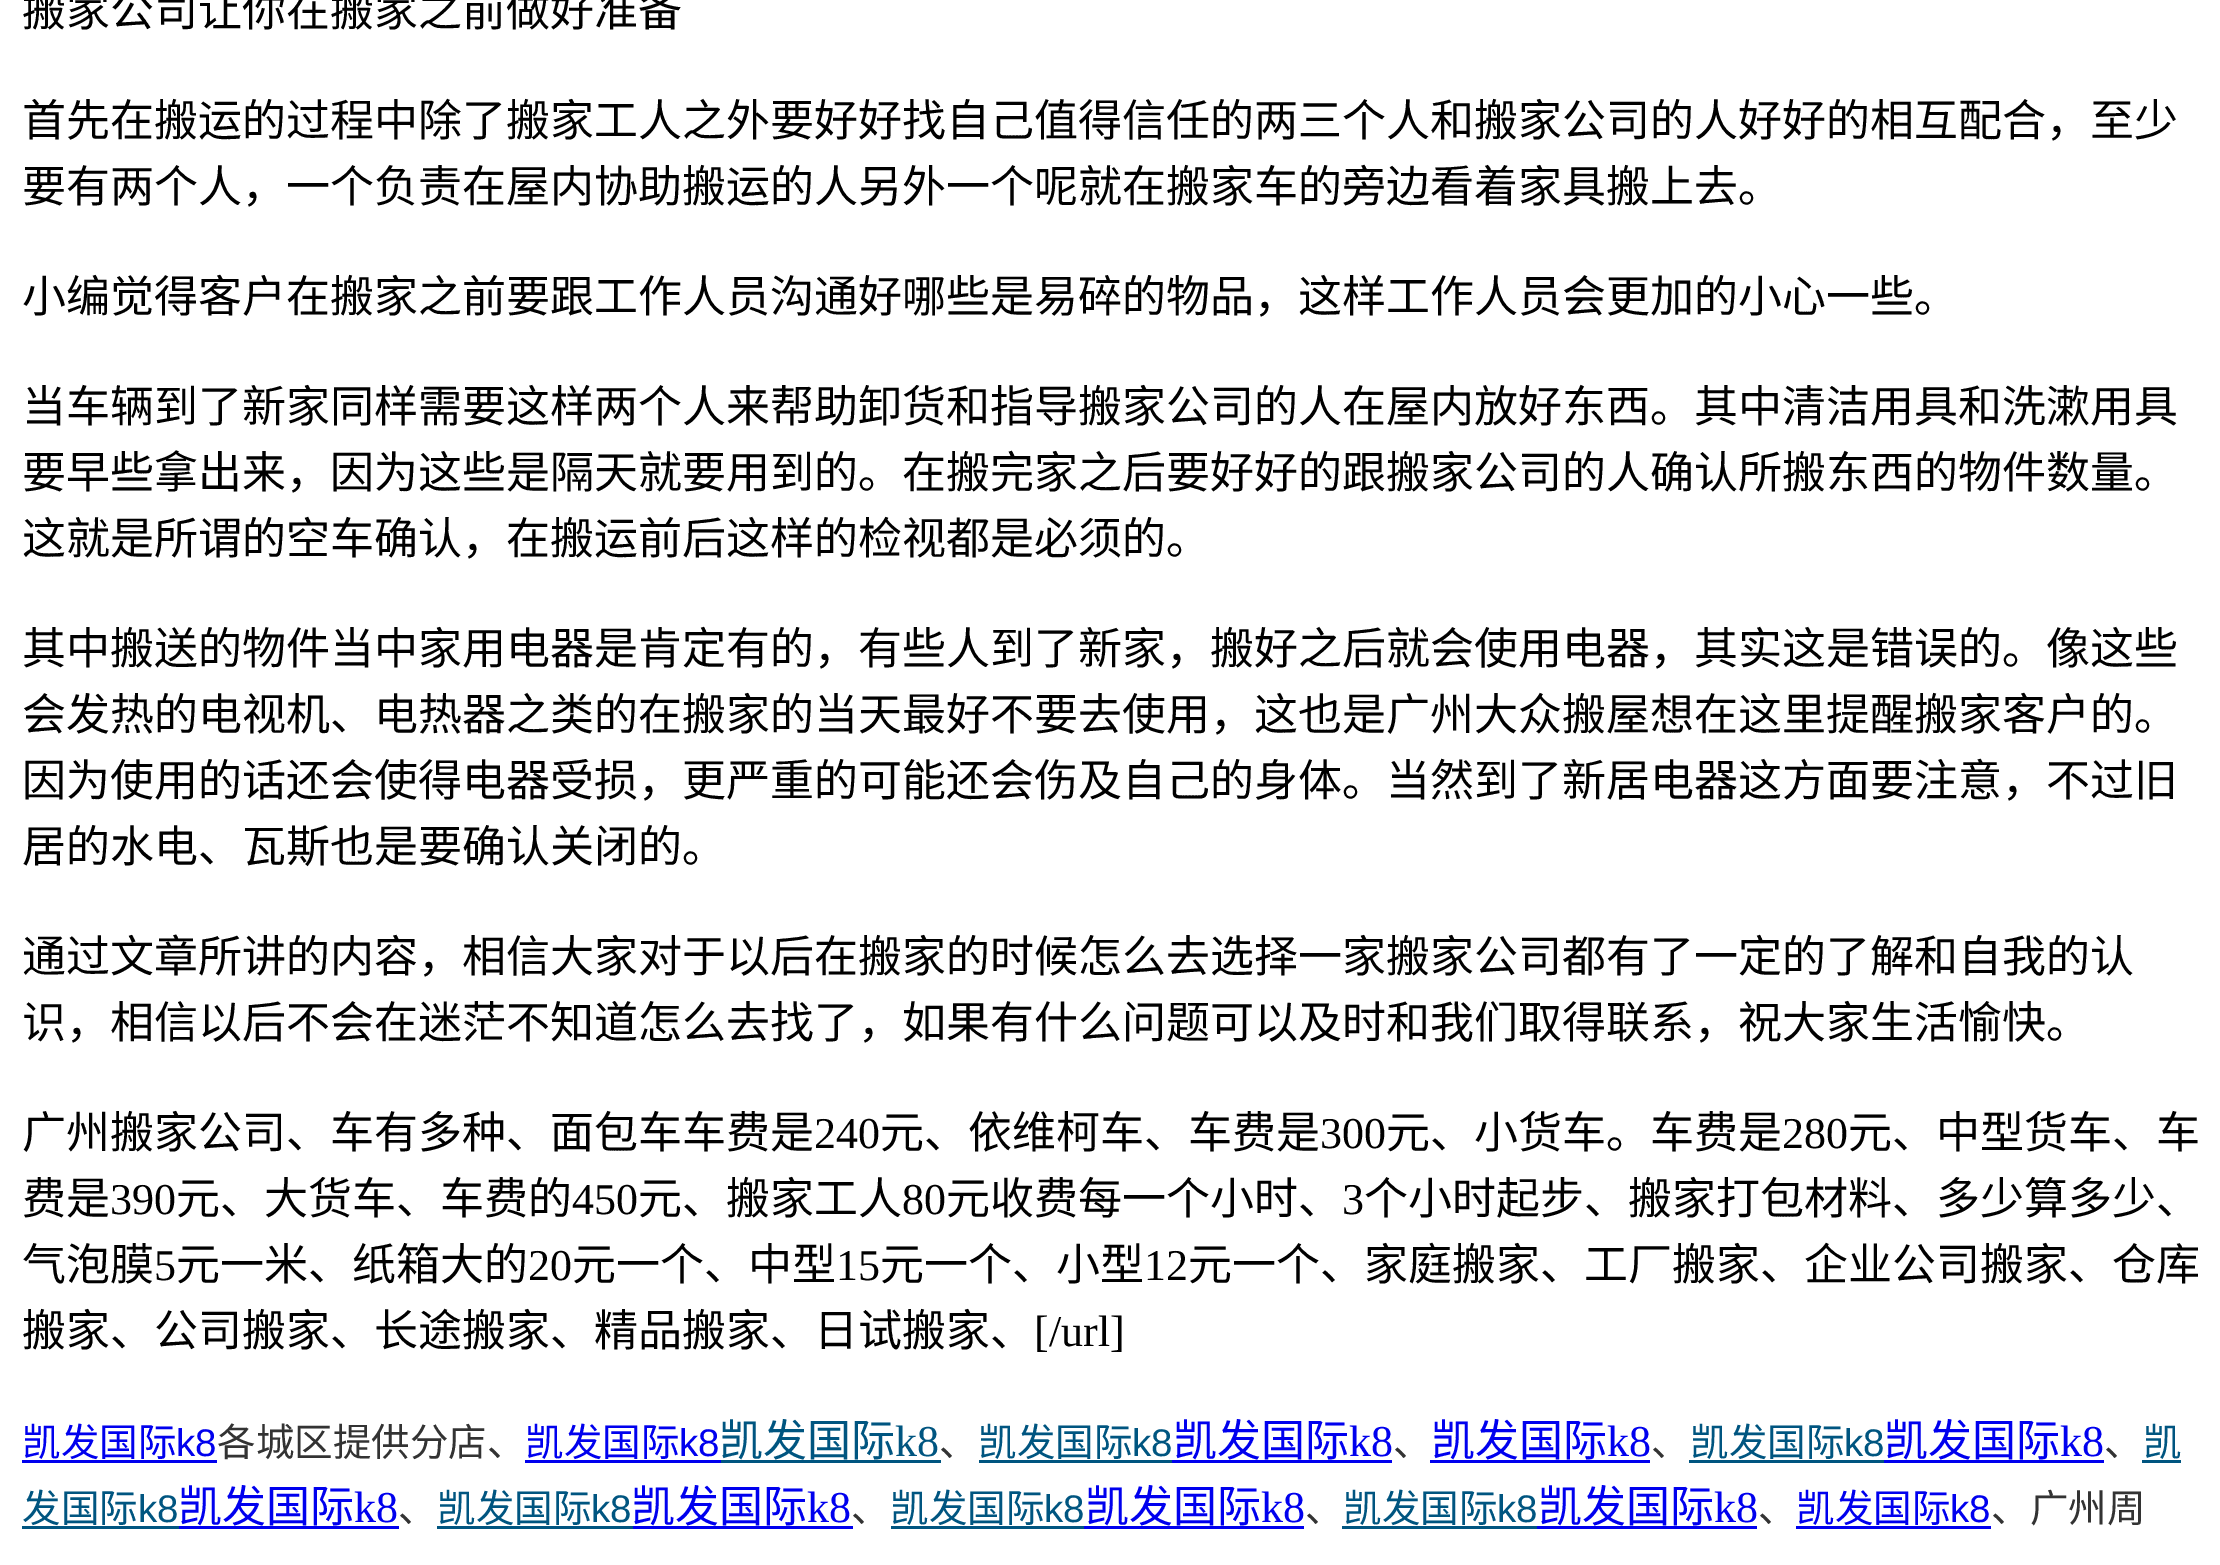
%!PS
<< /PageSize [2220 1565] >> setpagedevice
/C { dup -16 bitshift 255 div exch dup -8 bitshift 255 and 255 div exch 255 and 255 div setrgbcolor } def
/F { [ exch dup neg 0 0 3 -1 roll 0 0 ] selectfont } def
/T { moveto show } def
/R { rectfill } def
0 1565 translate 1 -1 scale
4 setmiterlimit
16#FFFFFF C
0 0 2220 1565 R
/NotoSansCJKSC-Regular 44 F
16#000000 C
(搬家公司让你在搬家之前做好准备) 22 26 T
(首先在搬运的过程中除了搬家工人之外要好好找自己值得信任的两三个人和搬家公司的人好好的相互配合，至少) 22 136 T
(要有两个人，一个负责在屋内协助搬运的人另外一个呢就在搬家车的旁边看着家具搬上去。) 22 202 T
(小编觉得客户在搬家之前要跟工作人员沟通好哪些是易碎的物品，这样工作人员会更加的小心一些。) 22 312 T
(当车辆到了新家同样需要这样两个人来帮助卸货和指导搬家公司的人在屋内放好东西。其中清洁用具和洗漱用具) 22 422 T
(要早些拿出来，因为这些是隔天就要用到的。在搬完家之后要好好的跟搬家公司的人确认所搬东西的物件数量。) 22 488 T
(这就是所谓的空车确认，在搬运前后这样的检视都是必须的。) 22 554 T
(其中搬送的物件当中家用电器是肯定有的，有些人到了新家，搬好之后就会使用电器，其实这是错误的。像这些) 22 664 T
(会发热的电视机、电热器之类的在搬家的当天最好不要去使用，这也是广州大众搬屋想在这里提醒搬家客户的。) 22 730 T
(因为使用的话还会使得电器受损，更严重的可能还会伤及自己的身体。当然到了新居电器这方面要注意，不过旧) 22 796 T
(居的水电、瓦斯也是要确认关闭的。) 22 862 T
(通过文章所讲的内容，相信大家对于以后在搬家的时候怎么去选择一家搬家公司都有了一定的了解和自我的认) 22 972 T
(识，相信以后不会在迷茫不知道怎么去找了，如果有什么问题可以及时和我们取得联系，祝大家生活愉快。) 22 1038 T
(广州搬家公司、车有多种、面包车车费是) 22 1148 T
/LiberationSerif-Regular 44 F
(240) 814 1148 T
/NotoSansCJKSC-Regular 44 F
(元、依维柯车、车费是) 880 1148 T
/LiberationSerif-Regular 44 F
(300) 1320 1148 T
/NotoSansCJKSC-Regular 44 F
(元、小货车。车费是) 1386 1148 T
/LiberationSerif-Regular 44 F
(280) 1782 1148 T
/NotoSansCJKSC-Regular 44 F
(元、中型货车、车) 1848 1148 T
(费是) 22 1214 T
/LiberationSerif-Regular 44 F
(390) 110 1214 T
/NotoSansCJKSC-Regular 44 F
(元、大货车、车费的) 176 1214 T
/LiberationSerif-Regular 44 F
(450) 572 1214 T
/NotoSansCJKSC-Regular 44 F
(元、搬家工人) 638 1214 T
/LiberationSerif-Regular 44 F
(80) 902 1214 T
/NotoSansCJKSC-Regular 44 F
(元收费每一个小时、) 946 1214 T
/LiberationSerif-Regular 44 F
(3) 1342 1214 T
/NotoSansCJKSC-Regular 44 F
(个小时起步、搬家打包材料、多少算多少、) 1364 1214 T
(气泡膜) 22 1280 T
/LiberationSerif-Regular 44 F
(5) 154 1280 T
/NotoSansCJKSC-Regular 44 F
(元一米、纸箱大的) 176 1280 T
/LiberationSerif-Regular 44 F
(20) 528 1280 T
/NotoSansCJKSC-Regular 44 F
(元一个、中型) 572 1280 T
/LiberationSerif-Regular 44 F
(15) 836 1280 T
/NotoSansCJKSC-Regular 44 F
(元一个、小型) 880 1280 T
/LiberationSerif-Regular 44 F
(12) 1144 1280 T
/NotoSansCJKSC-Regular 44 F
(元一个、家庭搬家、工厂搬家、企业公司搬家、仓库) 1188 1280 T
(搬家、公司搬家、长途搬家、精品搬家、日试搬家、) 22 1346 T
/LiberationSerif-Regular 44 F
([/url]) 1034 1346 T
/NotoSansCJKSC-Regular 38.5 F
16#0000EE C
(凯发国际) 22 1456 T
/LiberationSans-Regular 38.5 F
(k8) 176 1456 T
22 1460 195 3 R
/NotoSansCJKSC-Regular 38.5 F
16#333333 C
(各城区提供分店、) 217 1456 T
16#0000EE C
(凯发国际) 525 1456 T
/LiberationSans-Regular 38.5 F
(k8) 679 1456 T
525 1460 196 3 R
/NotoSansCJKSC-Regular 44 F
16#005580 C
(凯发国际) 719 1456 T
/LiberationSerif-Regular 44 F
(k8) 895 1456 T
721 1460 220 3 R
/NotoSansCJKSC-Regular 38.5 F
16#333333 C
(、) 939 1456 T
16#005580 C
(凯发国际) 978 1456 T
/LiberationSans-Regular 38.5 F
(k8) 1132 1456 T
979 1460 193 3 R
/NotoSansCJKSC-Regular 44 F
16#0000EE C
(凯发国际) 1173 1456 T
/LiberationSerif-Regular 44 F
(k8) 1349 1456 T
1172 1460 220 3 R
/NotoSansCJKSC-Regular 38.5 F
16#333333 C
(、) 1393 1456 T
/NotoSansCJKSC-Regular 44 F
16#0000EE C
(凯发国际) 1431 1456 T
/LiberationSerif-Regular 44 F
(k8) 1607 1456 T
1430 1460 220 3 R
/NotoSansCJKSC-Regular 38.5 F
16#333333 C
(、) 1651 1456 T
16#005580 C
(凯发国际) 1690 1456 T
/LiberationSans-Regular 38.5 F
(k8) 1844 1456 T
1689 1460 195 3 R
/NotoSansCJKSC-Regular 44 F
16#0000EE C
(凯发国际) 1884 1456 T
/LiberationSerif-Regular 44 F
(k8) 2060 1456 T
1884 1460 220 3 R
/NotoSansCJKSC-Regular 38.5 F
16#333333 C
(、) 2104 1456 T
16#005580 C
(凯) 2143 1456 T
2142 1460 39 3 R
(发国际) 22 1522 T
/LiberationSans-Regular 38.5 F
(k8) 138 1522 T
22 1526 157 3 R
/NotoSansCJKSC-Regular 44 F
16#0000EE C
(凯发国际) 178 1522 T
/LiberationSerif-Regular 44 F
(k8) 354 1522 T
179 1526 220 3 R
/NotoSansCJKSC-Regular 38.5 F
16#333333 C
(、) 398 1522 T
16#005580 C
(凯发国际) 437 1522 T
/LiberationSans-Regular 38.5 F
(k8) 591 1522 T
437 1526 196 3 R
/NotoSansCJKSC-Regular 44 F
16#0000EE C
(凯发国际) 631 1522 T
/LiberationSerif-Regular 44 F
(k8) 807 1522 T
633 1526 220 3 R
/NotoSansCJKSC-Regular 38.5 F
16#333333 C
(、) 851 1522 T
16#005580 C
(凯发国际) 890 1522 T
/LiberationSans-Regular 38.5 F
(k8) 1044 1522 T
891 1526 193 3 R
/NotoSansCJKSC-Regular 44 F
16#0000EE C
(凯发国际) 1085 1522 T
/LiberationSerif-Regular 44 F
(k8) 1261 1522 T
1084 1526 220 3 R
/NotoSansCJKSC-Regular 38.5 F
16#333333 C
(、) 1305 1522 T
16#005580 C
(凯发国际) 1343 1522 T
/LiberationSans-Regular 38.5 F
(k8) 1497 1522 T
1342 1526 195 3 R
/NotoSansCJKSC-Regular 44 F
16#0000EE C
(凯发国际) 1538 1522 T
/LiberationSerif-Regular 44 F
(k8) 1714 1522 T
1537 1526 220 3 R
/NotoSansCJKSC-Regular 38.5 F
16#333333 C
(、) 1758 1522 T
16#0000EE C
(凯发国际) 1796 1522 T
/LiberationSans-Regular 38.5 F
(k8) 1950 1522 T
1796 1526 195 3 R
/NotoSansCJKSC-Regular 38.5 F
16#333333 C
(、广州周) 1991 1522 T
showpage
